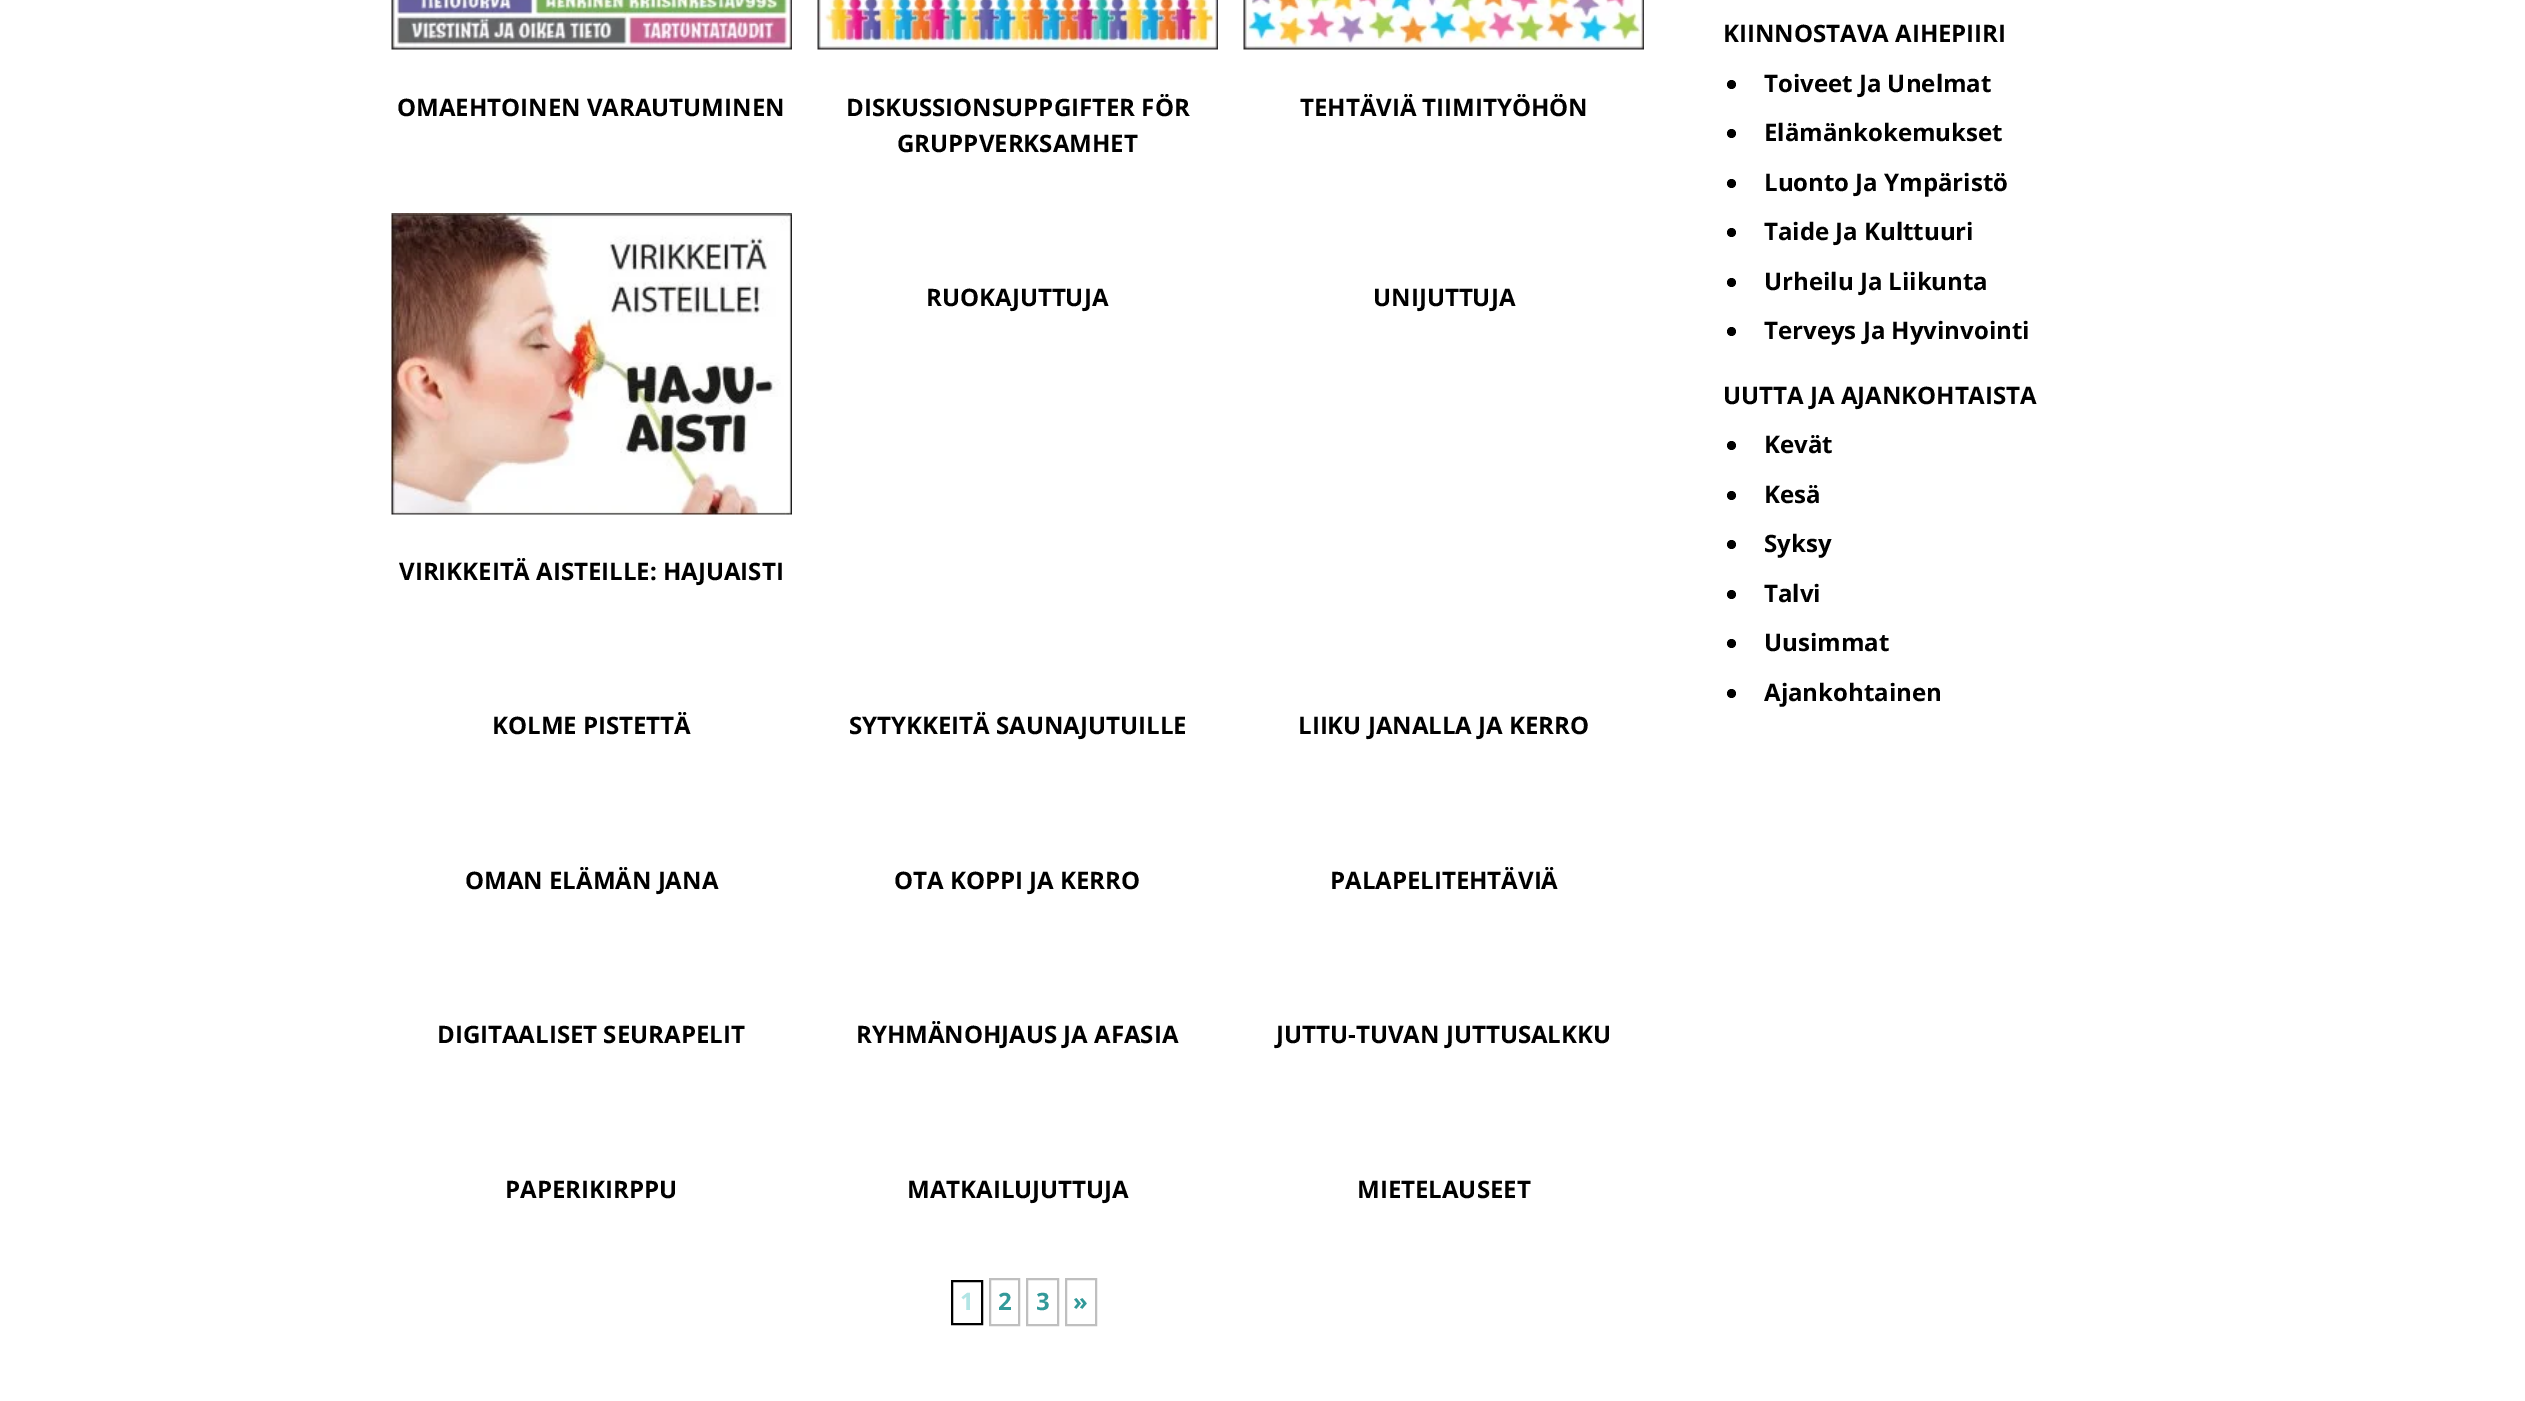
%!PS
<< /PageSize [2525 1401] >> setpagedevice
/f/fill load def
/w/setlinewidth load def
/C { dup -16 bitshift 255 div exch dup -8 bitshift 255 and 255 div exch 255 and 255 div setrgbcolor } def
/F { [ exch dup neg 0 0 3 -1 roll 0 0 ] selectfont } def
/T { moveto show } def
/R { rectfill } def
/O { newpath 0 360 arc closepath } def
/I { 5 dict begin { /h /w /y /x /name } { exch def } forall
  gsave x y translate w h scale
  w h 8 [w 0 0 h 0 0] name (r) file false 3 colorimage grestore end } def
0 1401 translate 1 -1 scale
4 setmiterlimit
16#FFFFFF C
0 0 2525 1401 R
(1.rgb) 391 0 401 50 I
/OpenSans-Bold 24 F
16#000000 C
(OMAEHTOINEN VARAUTUMINEN) 397 116 T
(2.rgb) 817 0 401 50 I
(DISKUSSIONSUPPGIFTER FÖR) 846 116 T
(GRUPPVERKSAMHET) 897 152 T
(3.rgb) 1243 0 401 50 I
(TEHTÄVIÄ TIIMITYÖHÖN) 1300 116 T
(RUOKAJUTTUJA) 926 306 T
(UNIJUTTUJA) 1373 306 T
(4.rgb) 391 213 401 302 I
(VIRIKKEITÄ AISTEILLE: HAJUAISTI) 399 580 T
(KOLME PISTETTÄ) 492 734 T
(SYTYKKEITÄ SAUNAJUTUILLE) 849 734 T
(LIIKU JANALLA JA KERRO) 1298 734 T
(OMAN ELÄMÄN JANA) 465 889 T
(OTA KOPPI JA KERRO) 894 889 T
(PALAPELITEHTÄVIÄ) 1330 889 T
(DIGITAALISET SEURAPELIT) 437 1043 T
(RYHMÄNOHJAUS JA AFASIA) 856 1043 T
(JUTTU-TUVAN JUTTUSALKKU) 1276 1043 T
(PAPERIKIRPPU) 505 1198 T
(MATKAILUJUTTUJA) 907 1198 T
(MIETELAUSEET) 1357 1198 T
2 w
952 1281 30 43 rectstroke
16#B2E5E5 C
(1) 960 1310 T
16#BFBFBF C
990 1279 29 46 rectstroke
16#339999 C
(2) 998 1310 T
16#BFBFBF C
1027 1279 31 46 rectstroke
16#339999 C
(3) 1036 1310 T
16#BFBFBF C
1066 1279 30 46 rectstroke
16#339999 C
(») 1073 1310 T
16#000000 C
(KIINNOSTAVA AIHEPIIRI) 1723 42 T
1731.5 84.5 4.5 O f
(Toiveet Ja Unelmat) 1764 92 T
1731.5 133.5 4.5 O f
(Elämänkokemukset) 1764 141 T
1731.5 183.5 4.5 O f
(Luonto Ja Ympäristö) 1764 191 T
1731.5 232.5 4.5 O f
(Taide Ja Kulttuuri) 1764 240 T
1731.5 282.5 4.5 O f
(Urheilu Ja Liikunta) 1764 290 T
1731.5 331.5 4.5 O f
(Terveys Ja Hyvinvointi) 1764 339 T
(UUTTA JA AJANKOHTAISTA) 1723 404 T
1731.5 445.5 4.5 O f
(Kevät) 1764 453 T
1731.5 495.5 4.5 O f
(Kesä) 1764 503 T
1731.5 544.5 4.5 O f
(Syksy) 1764 552 T
1731.5 594.5 4.5 O f
(Talvi) 1764 602 T
1731.5 643.5 4.5 O f
(Uusimmat) 1764 651 T
1731.5 693.5 4.5 O f
(Ajankohtainen) 1764 701 T
showpage
